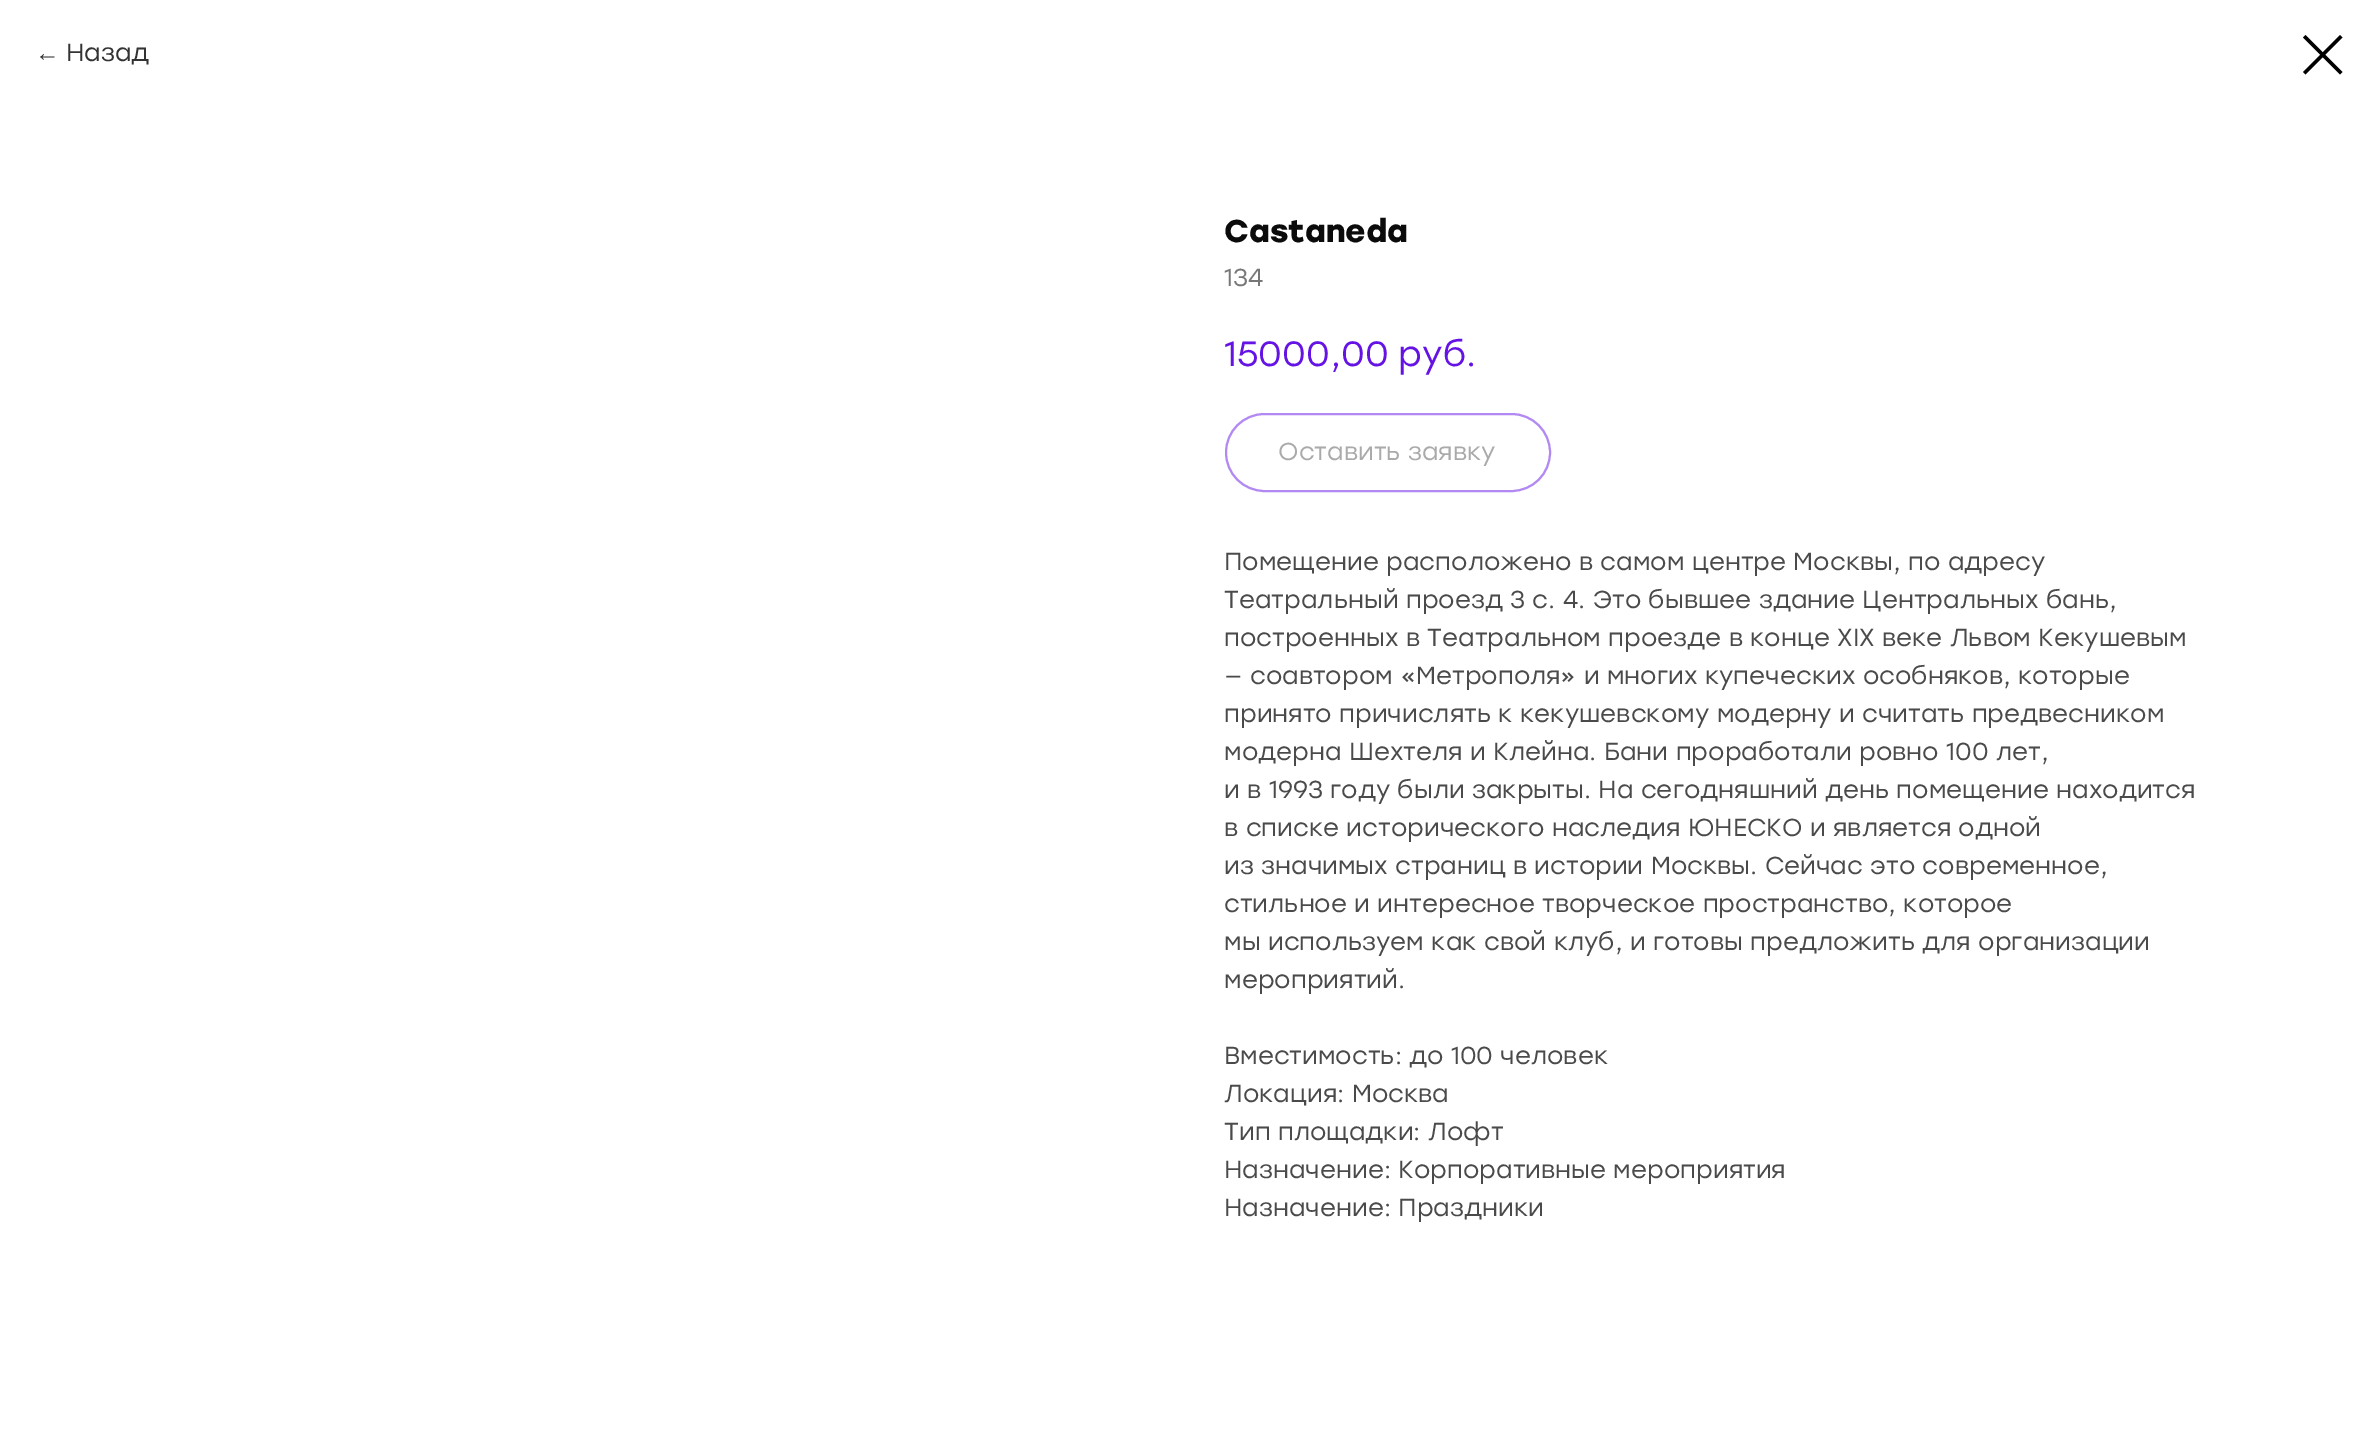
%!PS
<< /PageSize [2378 1455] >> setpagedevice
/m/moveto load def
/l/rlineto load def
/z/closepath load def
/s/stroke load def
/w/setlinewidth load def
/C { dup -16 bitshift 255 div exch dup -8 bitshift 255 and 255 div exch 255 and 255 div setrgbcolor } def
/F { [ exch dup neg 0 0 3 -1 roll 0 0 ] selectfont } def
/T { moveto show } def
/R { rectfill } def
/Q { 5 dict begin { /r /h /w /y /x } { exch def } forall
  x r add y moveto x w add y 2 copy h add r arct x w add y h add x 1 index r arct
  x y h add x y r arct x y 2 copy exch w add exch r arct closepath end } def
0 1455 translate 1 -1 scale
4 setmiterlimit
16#FFFFFF C
0 0 2378 1455 R
/LiberationSans-Regular 24.5 F
16#333333 C
(←) 35 61 T
/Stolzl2-Regular 24.5 F
(Назад) 66 61 T
16#000000 C
2303 37.5 m 2.5 -2.5 l 37 37 l -2.5 2.5 l z eofill
2340 35 m 2.5 2.5 l -37 37 l -2.5 -2.5 l z eofill
/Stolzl-Bold 31.5 F
16#0B0B0B C
(Castaneda) 1224 242 T
/Stolzl-Regular 24.5 F
16#777777 C
(134) 1224 286 T
/Stolzl2-Regular 35 F
16#6513E5 C
(15000,00) 1224 366 T
(руб.) 1398 366 T
16#B289F2 C
2 w
1226 414 324 77 38.5 Q s
/Stolzl2-Regular 24.5 F
16#AAAAAA C
(Оставить заявку) 1278 460 T
/Stolzl-Regular 24.5 F
16#4A4A4A C
(Помещение расположено в самом центре Москвы, по адресу) 1224 570 T
(Театральный проезд 3 с. 4. Это бывшее здание Центральных бань,) 1224 608 T
(построенных в Театральном проезде в конце XIX веке Львом Кекушевым) 1224 646 T
(— соавтором «Метрополя» и многих купеческих особняков, которые) 1224 684 T
(принято причислять к кекушевскому модерну и считать предвесником) 1224 722 T
(модерна Шехтеля и Клейна. Бани проработали ровно 100 лет,) 1224 760 T
(и в 1993 году были закрыты. На сегодняшний день помещение находится) 1224 798 T
(в списке исторического наследия ЮНЕСКО и является одной) 1224 836 T
(из значимых страниц в истории Москвы. Сейчас это современное,) 1224 874 T
(стильное и интересное творческое пространство, которое) 1224 912 T
(мы используем как свой клуб, и готовы предложить для организации) 1224 950 T
(мероприятий.) 1224 988 T
(Вместимость: до 100 человек) 1224 1064 T
(Локация: Москва) 1224 1102 T
(Тип площадки: Лофт) 1224 1140 T
(Назначение: Корпоративные мероприятия) 1224 1178 T
(Назначение: Праздники) 1224 1216 T
showpage
